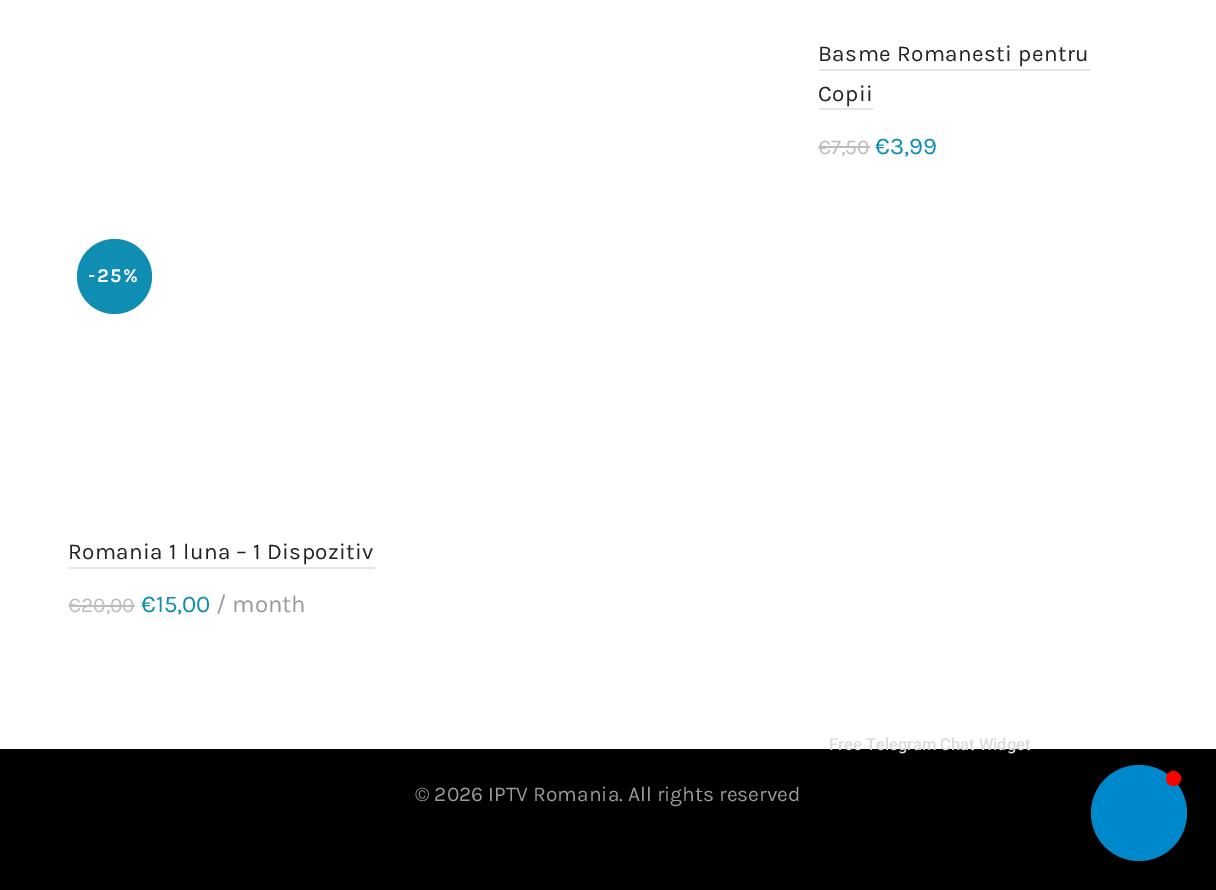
%!PS
<< /PageSize [1216 890] >> setpagedevice
/m/moveto load def
/f/fill load def
/C { dup -16 bitshift 255 div exch dup -8 bitshift 255 and 255 div exch 255 and 255 div setrgbcolor } def
/F { [ exch dup neg 0 0 3 -1 roll 0 0 ] selectfont } def
/T { moveto show } def
/R { rectfill } def
/O { newpath 0 360 arc closepath } def
0 890 translate 1 -1 scale
4 setmiterlimit
16#FFFFFF C
0 0 1216 890 R
/Karla-Regular 22.5 F
16#252222 C
818 61 m .45 0 (Basme Romanesti pentru) ashow
16#E6E6E6 C
819 69 272 2 R
16#252222 C
818 101 m .45 0 (Copii) ashow
16#E6E6E6 C
819 108 54 2 R
/Karla-Regular 21 F
16#BDBDBD C
(€7,50) 818 154 T
819 146 51 2 R
/Karla-Regular 24 F
16#0F8DB3 C
(€3,99) 875 154 T
114.5 276.5 37.5 O f
/Karla-Bold 19.5 F
16#FFFFFF C
88 282 m 1.5 0 (-25%) ashow
/Karla-Regular 22.5 F
16#252222 C
68 559 m .45 0 (Romania 1 luna – 1 Dispozitiv) ashow
16#E6E6E6 C
69 567 306 2 R
/Karla-Regular 21 F
16#BDBDBD C
(€20,00) 68 612 T
69 605 66 2 R
/Karla-Regular 24 F
16#0F8DB3 C
(€15,00) 141 612 T
16#999999 C
(/ month) 216 612 T
16#000000 C
0 749 1216 141 R
/Karla-Regular 21 F
16#999999 C
(© 2026 IPTV Romania. All rights reserved) 415 801 T
/Roboto-Medium 16.5 F
16#DBDBDB C
(Free Telegram Chat Widget) 829 750 T
16#0088CC C
1139 813 48 O f
16#FF0000 C
1173.5 778.5 7.5 O f
showpage
